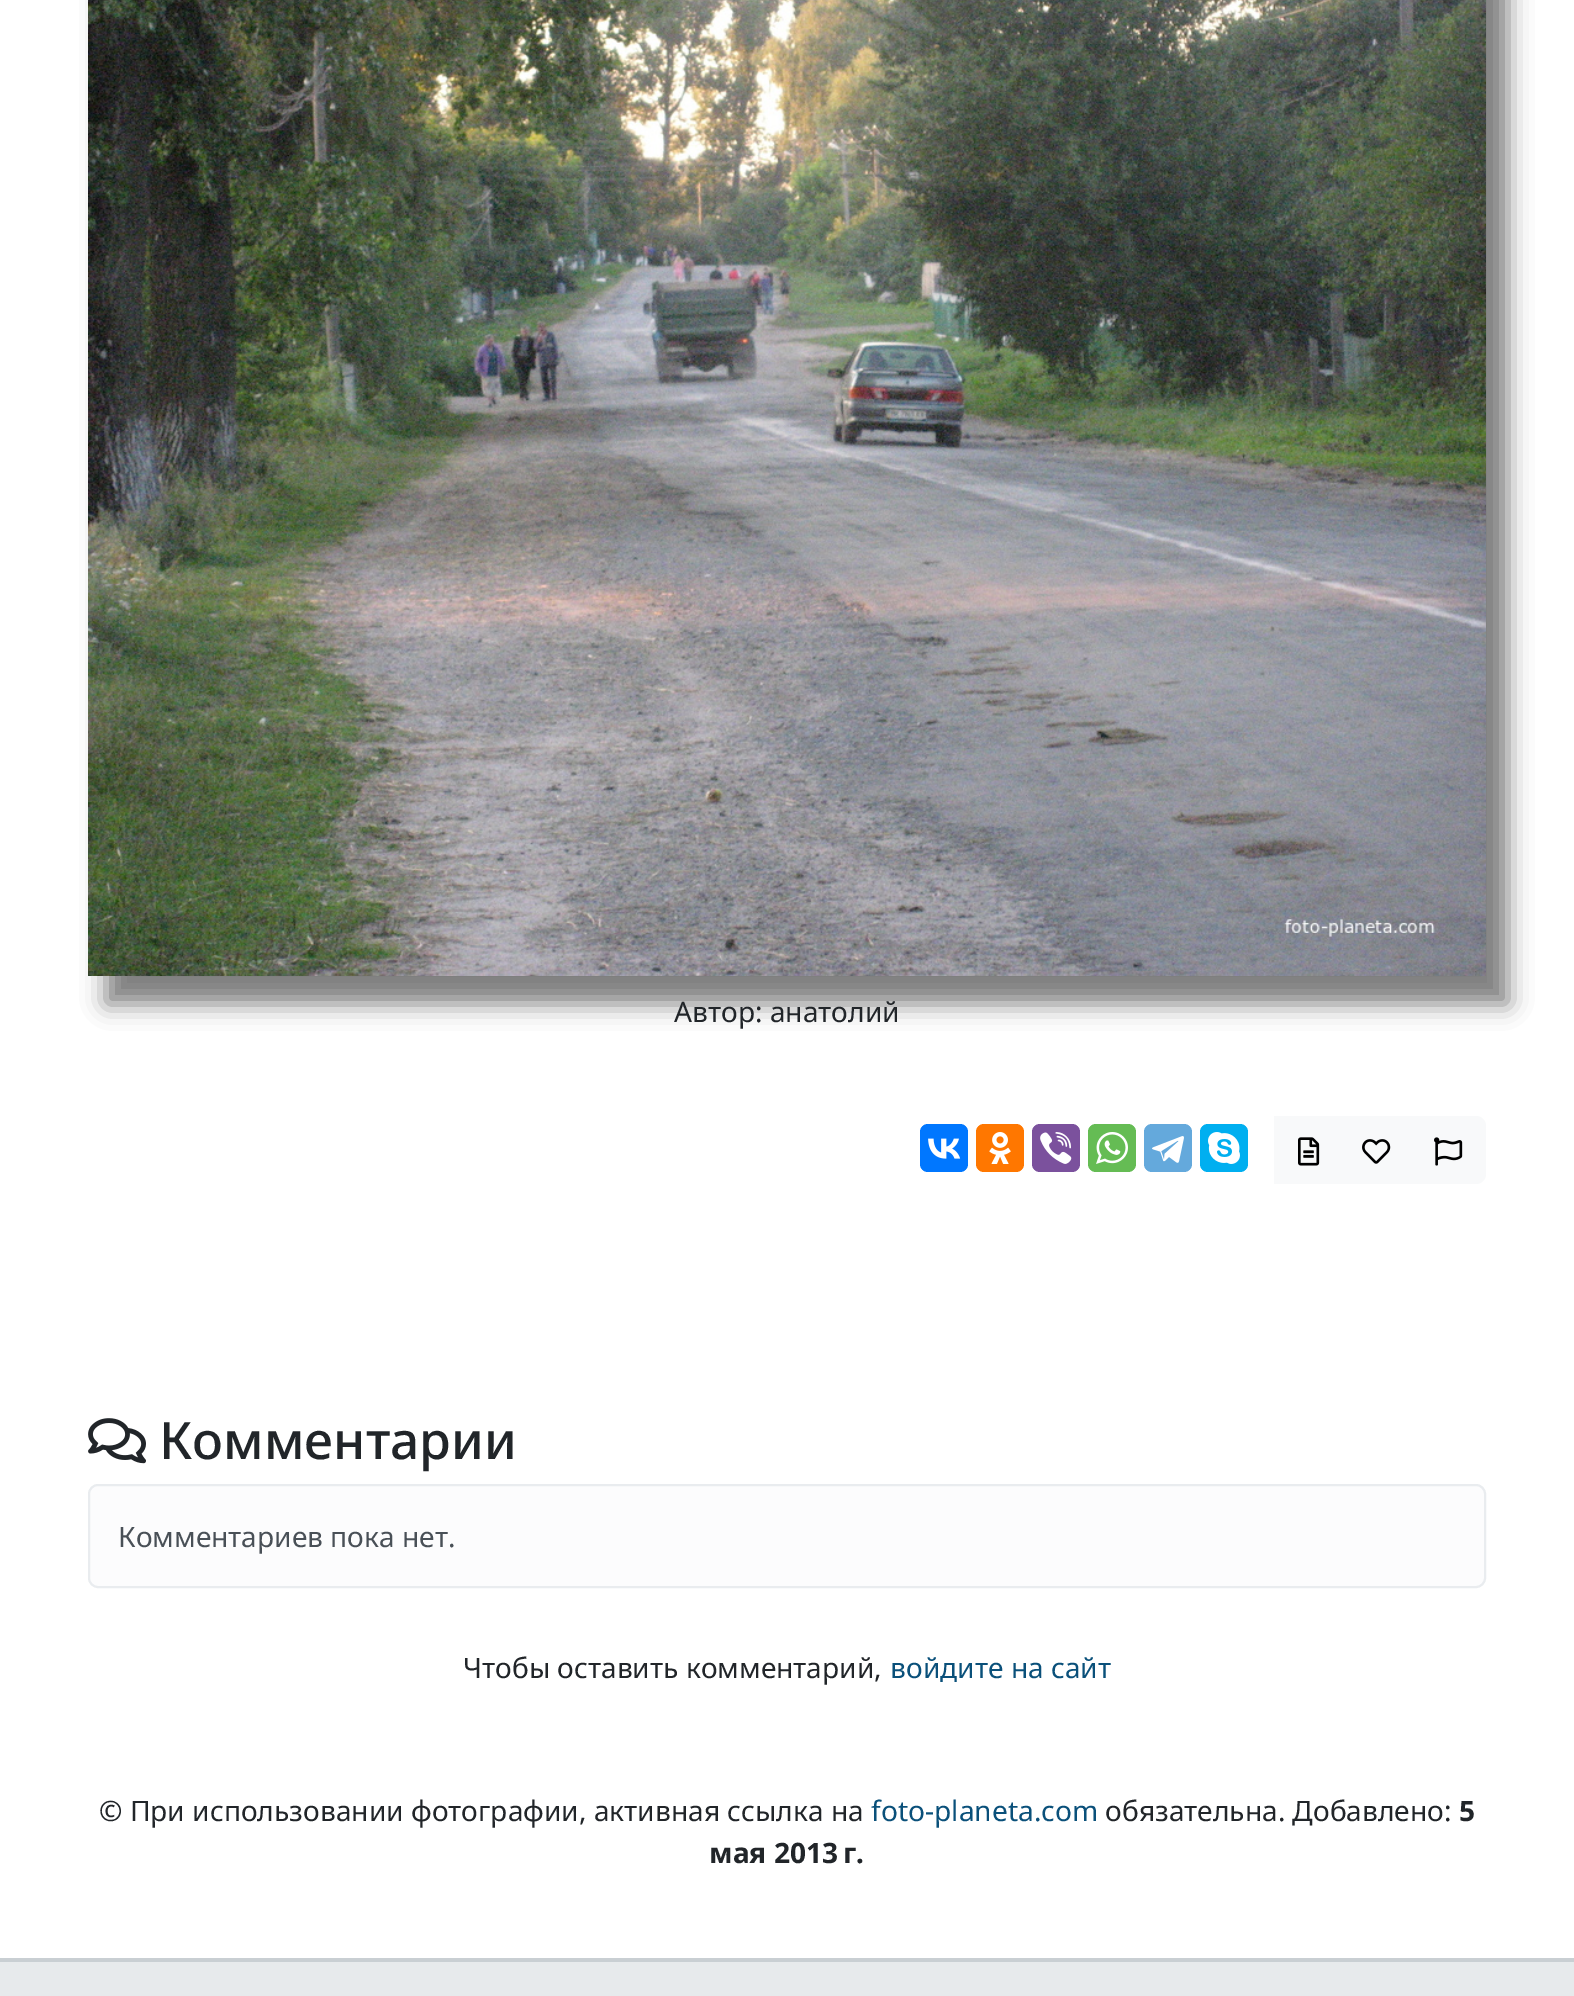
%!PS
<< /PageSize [1574 1996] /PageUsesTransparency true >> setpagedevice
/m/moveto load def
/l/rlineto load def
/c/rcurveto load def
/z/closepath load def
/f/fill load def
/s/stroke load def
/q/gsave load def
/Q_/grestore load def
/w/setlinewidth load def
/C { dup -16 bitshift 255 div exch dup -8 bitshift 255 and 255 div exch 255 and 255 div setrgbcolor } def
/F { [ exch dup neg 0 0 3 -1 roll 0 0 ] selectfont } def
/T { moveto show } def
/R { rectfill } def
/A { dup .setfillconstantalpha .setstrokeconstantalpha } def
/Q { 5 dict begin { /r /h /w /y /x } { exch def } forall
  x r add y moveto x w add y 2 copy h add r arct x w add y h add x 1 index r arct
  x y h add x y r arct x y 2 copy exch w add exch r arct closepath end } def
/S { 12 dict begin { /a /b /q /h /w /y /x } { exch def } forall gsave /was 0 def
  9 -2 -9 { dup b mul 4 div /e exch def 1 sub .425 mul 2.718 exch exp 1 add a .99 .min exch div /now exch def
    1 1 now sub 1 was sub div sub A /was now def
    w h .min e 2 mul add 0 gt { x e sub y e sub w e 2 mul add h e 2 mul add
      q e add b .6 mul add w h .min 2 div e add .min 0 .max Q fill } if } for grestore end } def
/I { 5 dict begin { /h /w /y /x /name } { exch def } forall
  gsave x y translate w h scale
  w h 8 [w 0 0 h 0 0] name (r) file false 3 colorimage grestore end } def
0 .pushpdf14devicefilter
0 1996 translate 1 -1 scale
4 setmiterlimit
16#FFFFFF C
0 0 1574 1996 R
16#000000 C
106 -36 1402 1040 0 12 .51 S
(1.rgb) 88 0 1398 976 I
/NotoSans-Regular 28.15 F
16#212529 C
(Автор: анатолий) 674 1022 T
16#0077FF C
920 1124 48 48 8 Q f
(2.rgb) 928 1138 33 21 I
16#FF7700 C
976 1124 48 48 8 Q f
(3.rgb) 989 1132 22 32 I
16#7B519D C
1032 1124 48 48 8 Q f
(4.rgb) 1040 1132 32 32 I
16#65BC54 C
1088 1124 48 48 8 Q f
(5.rgb) 1096 1132 32 32 I
16#64A9DC C
1144 1124 48 48 8 Q f
(6.rgb) 1152 1136 32 27 I
16#00AFF0 C
1200 1124 48 48 8 Q f
(7.rgb) 1208 1132 32 32 I
16#F8F9FA C
1274 1116 138 68 R
(8.rgb) 1298 1137 22 29 I
1412 1116 m 64 0 l 5.5 0 10 4.5 10 10 c 0 48 l 0 5.5 -4.5 10 -10 10 c -64 0 l z f
(9.rgb) 1434 1137 29 29 I
(10.rgb) 1362 1139 29 25 I
(11.rgb) 88 1418 58 46 I
/NotoSans-Medium 51.5 F
16#212529 C
(Комментарии) 159 1459 T
16#FCFCFD C
89 1485 1396 102 9 Q q f Q_
16#E9ECEF C
2 w
s
/NotoSans-Regular 28.15 F
16#495057 C
(Комментариев пока нет.) 118 1547 T
16#212529 C
(Чтобы оставить комментарий,) 463 1678 T
16#0A507A C
(войдите на сайт) 890 1678 T
16#212529 C
(© При использовании фотографии, активная ссылка на) 99 1821 T
16#0A507A C
(foto-planeta.com) 871 1821 T
16#212529 C
(обязательна. Добавлено:) 1105 1821 T
/NotoSans-Bold 28.15 F
(5) 1459 1821 T
(мая 2013 г.) 709 1863 T
16#E7EAEC C
0 1962 1574 34 R
16#C9CFD3 C
0 1958 1574 4 R
.poppdf14devicefilter showpage
